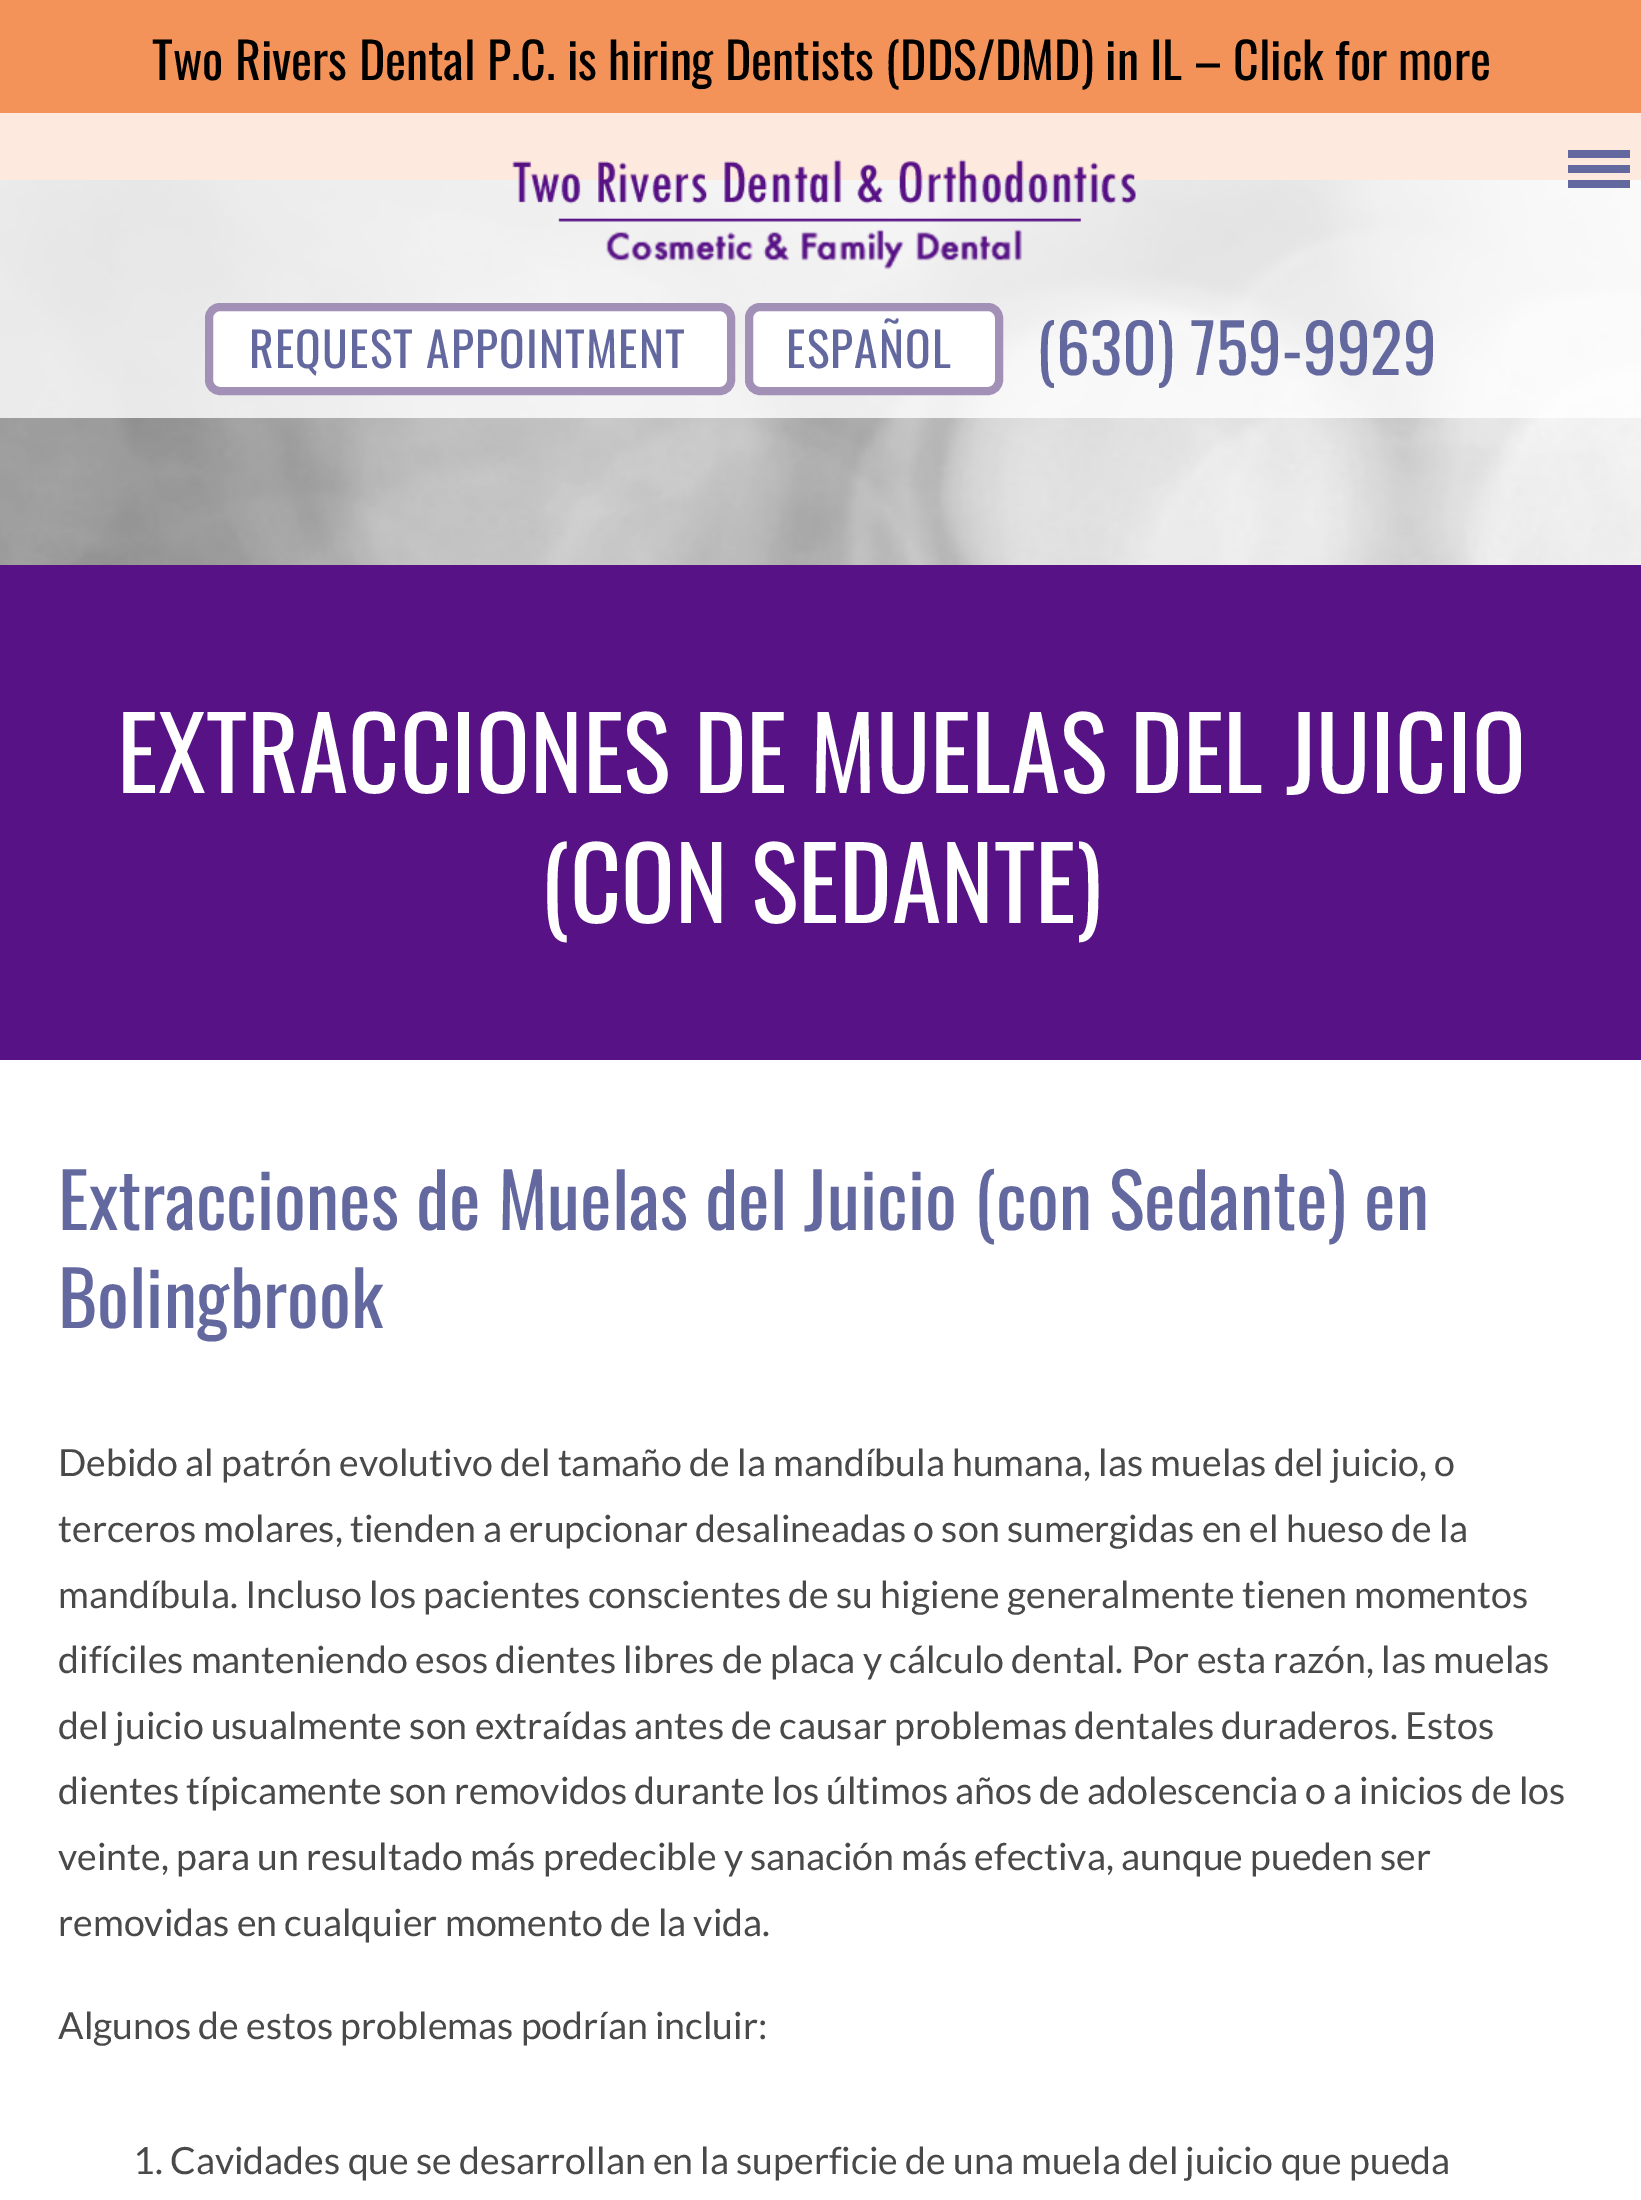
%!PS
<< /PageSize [1641 2200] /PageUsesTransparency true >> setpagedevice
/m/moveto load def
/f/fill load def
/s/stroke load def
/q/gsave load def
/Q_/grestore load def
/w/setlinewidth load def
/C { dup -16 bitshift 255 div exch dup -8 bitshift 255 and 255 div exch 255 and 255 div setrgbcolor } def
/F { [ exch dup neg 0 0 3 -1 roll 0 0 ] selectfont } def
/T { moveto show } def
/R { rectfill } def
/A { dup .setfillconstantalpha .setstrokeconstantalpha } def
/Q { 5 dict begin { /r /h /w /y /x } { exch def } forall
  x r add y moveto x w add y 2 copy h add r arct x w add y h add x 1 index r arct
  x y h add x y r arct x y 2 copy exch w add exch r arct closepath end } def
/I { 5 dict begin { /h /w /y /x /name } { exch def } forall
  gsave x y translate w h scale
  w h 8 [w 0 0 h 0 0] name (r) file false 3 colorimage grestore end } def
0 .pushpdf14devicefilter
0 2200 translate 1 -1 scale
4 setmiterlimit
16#FFFFFF C
0 0 1641 2200 R
16#F39359 C
0 0 1641 180 R
/Oswald-Regular 50 F
16#000000 C
(Two Rivers Dental P.C. is hiring Dentists \(DDS/DMD\) in IL – Click for more) 152 80 T
(2.rgb) 0 180 1641 385 I
0.8 A
16#FFFFFF C
0 113 1641 305 R
1 A
(1.rgb) 512 159 624 111 I
16#63689E C
1568 165 62 8 R
1568 150 62 8 R
1568 180 62 8 R
16#FFFFFF C
209 307 522 84 11 Q q f Q_
16#A390B7 C
8 w
s
/Oswald-Regular 47.5 F
16#63689E C
249 368 m 1.2 0 (REQUEST APPOINTMENT) ashow
16#FFFFFF C
749 307 250 84 11 Q q f Q_
16#A390B7 C
s
16#63689E C
786 368 m 1.2 0 (ESPAÑOL) ashow
/Oswald-Regular 67.5 F
(\(630\) 759-9929) 1036 375 T
16#571285 C
0 565 1641 495 R
/Oswald-Regular 100 F
16#FFFFFF C
(EXTRACCIONES DE MUELAS DEL JUICIO) 117 793 T
(\(CON SEDANTE\)) 540 923 T
/Oswald-Regular 75 F
16#63689E C
(Extracciones de Muelas del Juicio \(con Sedante\) en) 58 1230 T
(Bolingbrook) 58 1328 T
/Lato-Regular 37.5 F
16#494949 C
(Debido al patrón evolutivo del tamaño de la mandíbula humana, las muelas del juicio, o) 58 1476 T
(terceros molares, tienden a erupcionar desalineadas o son sumergidas en el hueso de la) 58 1542 T
(mandíbula. Incluso los pacientes conscientes de su higiene generalmente tienen momentos) 58 1608 T
(difíciles manteniendo esos dientes libres de placa y cálculo dental. Por esta razón, las muelas) 58 1673 T
(del juicio usualmente son extraídas antes de causar problemas dentales duraderos. Estos) 58 1739 T
(dientes típicamente son removidos durante los últimos años de adolescencia o a inicios de los) 58 1804 T
(veinte, para un resultado más predecible y sanación más efectiva, aunque pueden ser) 58 1870 T
(removidas en cualquier momento de la vida.) 58 1936 T
(Algunos de estos problemas podrían incluir:) 58 2039 T
(1. Cavidades que se desarrollan en la superficie de una muela del juicio que pueda) 133 2174 T
.poppdf14devicefilter showpage
